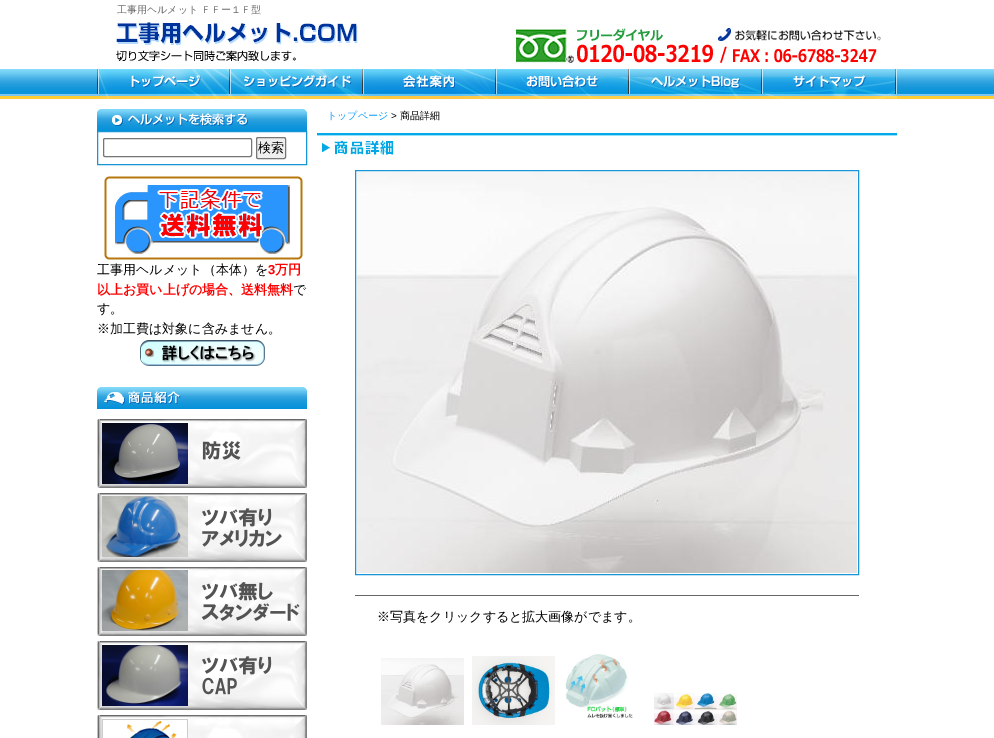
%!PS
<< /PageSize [994 738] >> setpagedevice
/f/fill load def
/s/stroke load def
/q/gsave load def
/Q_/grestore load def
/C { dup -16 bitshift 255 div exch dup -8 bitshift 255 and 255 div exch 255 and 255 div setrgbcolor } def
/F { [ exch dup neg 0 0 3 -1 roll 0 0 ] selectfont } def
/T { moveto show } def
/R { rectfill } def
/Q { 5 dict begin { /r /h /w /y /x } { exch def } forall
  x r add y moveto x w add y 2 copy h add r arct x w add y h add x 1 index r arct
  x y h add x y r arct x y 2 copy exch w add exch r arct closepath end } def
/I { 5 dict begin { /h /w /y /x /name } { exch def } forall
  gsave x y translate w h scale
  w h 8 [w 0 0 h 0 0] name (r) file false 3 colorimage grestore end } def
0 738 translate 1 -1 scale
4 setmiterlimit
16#FFFFFF C
0 0 994 738 R
(1.rgb) 0 69 994 30 I
(2.rgb) 116 19 765 44 I
/WenQuanYiZenHei-Medium 10 F
16#666666 C
(工事用ヘルメット ＦＦー１Ｆ型) 117 13 T
(3.rgb) 97 69 132 30 I
(4.rgb) 98 69 131 25 I
(5.rgb) 229 69 133 30 I
(6.rgb) 230 69 132 25 I
(7.rgb) 362 69 133 30 I
(8.rgb) 363 69 132 25 I
(9.rgb) 495 94 133 5 I
(10.rgb) 495 69 133 25 I
(11.rgb) 628 69 133 30 I
(12.rgb) 629 69 132 25 I
(13.rgb) 761 94 136 5 I
(14.rgb) 761 69 136 25 I
(15.rgb) 97 109 210 22 I
16#1795D7 C
97.5 131.5 209 33 rectstroke
16#767676 C
103.5 138.5 148 18 1.5 Q s
16#EFEFEF C
256.5 137.5 29 21 1.5 Q q f Q_
16#767676 C
s
/WenQuanYiZenHei-Medium 13 F
16#000000 C
(検索) 258 152 T
(16.rgb) 103 176 200 84 I
(工事用ヘルメット（本体）を) 97 274 T
/LiberationSans-Bold 13 F
16#FF0000 C
(3) 268 274 T
/WenQuanYiZenHei-Bold 13 F
(万円) 275 274 T
(以上お買い上げの場合、送料無料) 97 294 T
/WenQuanYiZenHei-Medium 13 F
16#000000 C
(で) 293 294 T
(す。) 97 313 T
(※加工費は対象に含みません。) 97 333 T
(17.rgb) 140 340 125 26 I
(18.rgb) 97 387 210 22 I
(19.rgb) 97 419 210 69 I
(20.rgb) 97 493 210 69 I
(21.rgb) 97 567 210 69 I
(22.rgb) 97 641 210 69 I
(23.rgb) 97 715 210 23 I
/WenQuanYiZenHei-Medium 10 F
16#0099FF C
(トップページ) 327 119 T
/LiberationSans-Regular 10 F
16#000000 C
(>) 391 119 T
/WenQuanYiZenHei-Medium 10 F
(商品詳細) 400 119 T
(24.rgb) 317 133 580 23 I
16#1795D7 C
355.5 170.5 503 404 rectstroke
(25.rgb) 357 172 500 401 I
16#666666 C
355 595 504 1 R
/WenQuanYiZenHei-Medium 13 F
16#000000 C
(※写真をクリックすると拡大画像がでます。) 377 621 T
(26.rgb) 381 658 83 67 I
(27.rgb) 472 656 83 69 I
(28.rgb) 565 654 68 64 I
(29.rgb) 654 693 83 32 I
showpage
